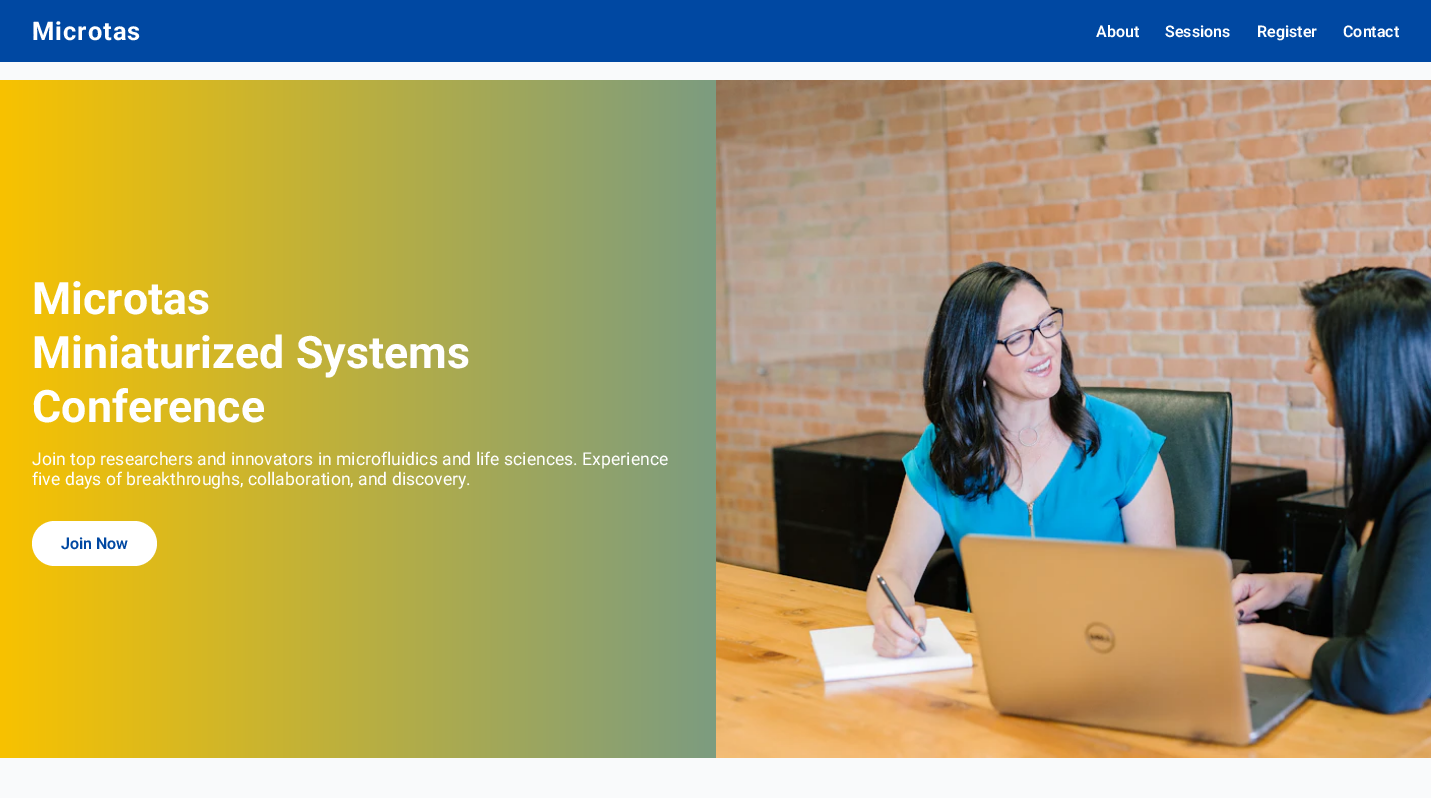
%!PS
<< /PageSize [1431 798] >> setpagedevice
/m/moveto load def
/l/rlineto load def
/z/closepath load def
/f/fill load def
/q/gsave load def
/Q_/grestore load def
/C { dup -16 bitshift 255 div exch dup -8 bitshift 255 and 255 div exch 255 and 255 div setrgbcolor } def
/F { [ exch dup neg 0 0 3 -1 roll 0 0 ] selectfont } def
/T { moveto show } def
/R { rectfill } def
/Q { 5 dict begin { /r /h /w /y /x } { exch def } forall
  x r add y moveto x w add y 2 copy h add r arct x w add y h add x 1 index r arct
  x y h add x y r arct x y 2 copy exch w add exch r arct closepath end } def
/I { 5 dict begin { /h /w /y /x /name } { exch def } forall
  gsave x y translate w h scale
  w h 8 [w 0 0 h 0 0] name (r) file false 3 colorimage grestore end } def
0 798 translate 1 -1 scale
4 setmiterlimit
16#F9FAFB C
0 0 1431 798 R
16#0048A2 C
0 0 1431 62 R
/Roboto-Bold 25.5 F
16#FFFFFF C
32 40 m 1 0 (Microtas) ashow
/Roboto-SemiBold 16 F
(About) 1096 37 T
(Sessions) 1165 37 T
(Register) 1257 37 T
(Contact) 1343 37 T
q 0 80 m 716 0 l 0 678 l -716 0 l z clip newpath
<< /ShadingType 2 /ColorSpace /DeviceRGB /Coords [0 419 1431 419] /Extend [true true] /Function << /FunctionType 2 /Domain [0 1] /C0 [.973 .761 0] /C1 [0 .463 1] /N 1 >> >> shfill Q_
/Roboto-Bold 44.75 F
(Microtas) 32 314 T
(Miniaturized Systems) 32 368 T
(Conference) 32 422 T
/Roboto-Regular 17.6 F
(Join top researchers and innovators in microfluidics and life sciences. Experience) 32 465 T
(five days of breakthroughs, collaboration, and discovery.) 32 485 T
32 521 125 45 22.5 Q f
/Roboto-SemiBold 16 F
16#0048A2 C
(Join Now) 61 549 T
(1.rgb) 716 80 715 678 I
showpage
